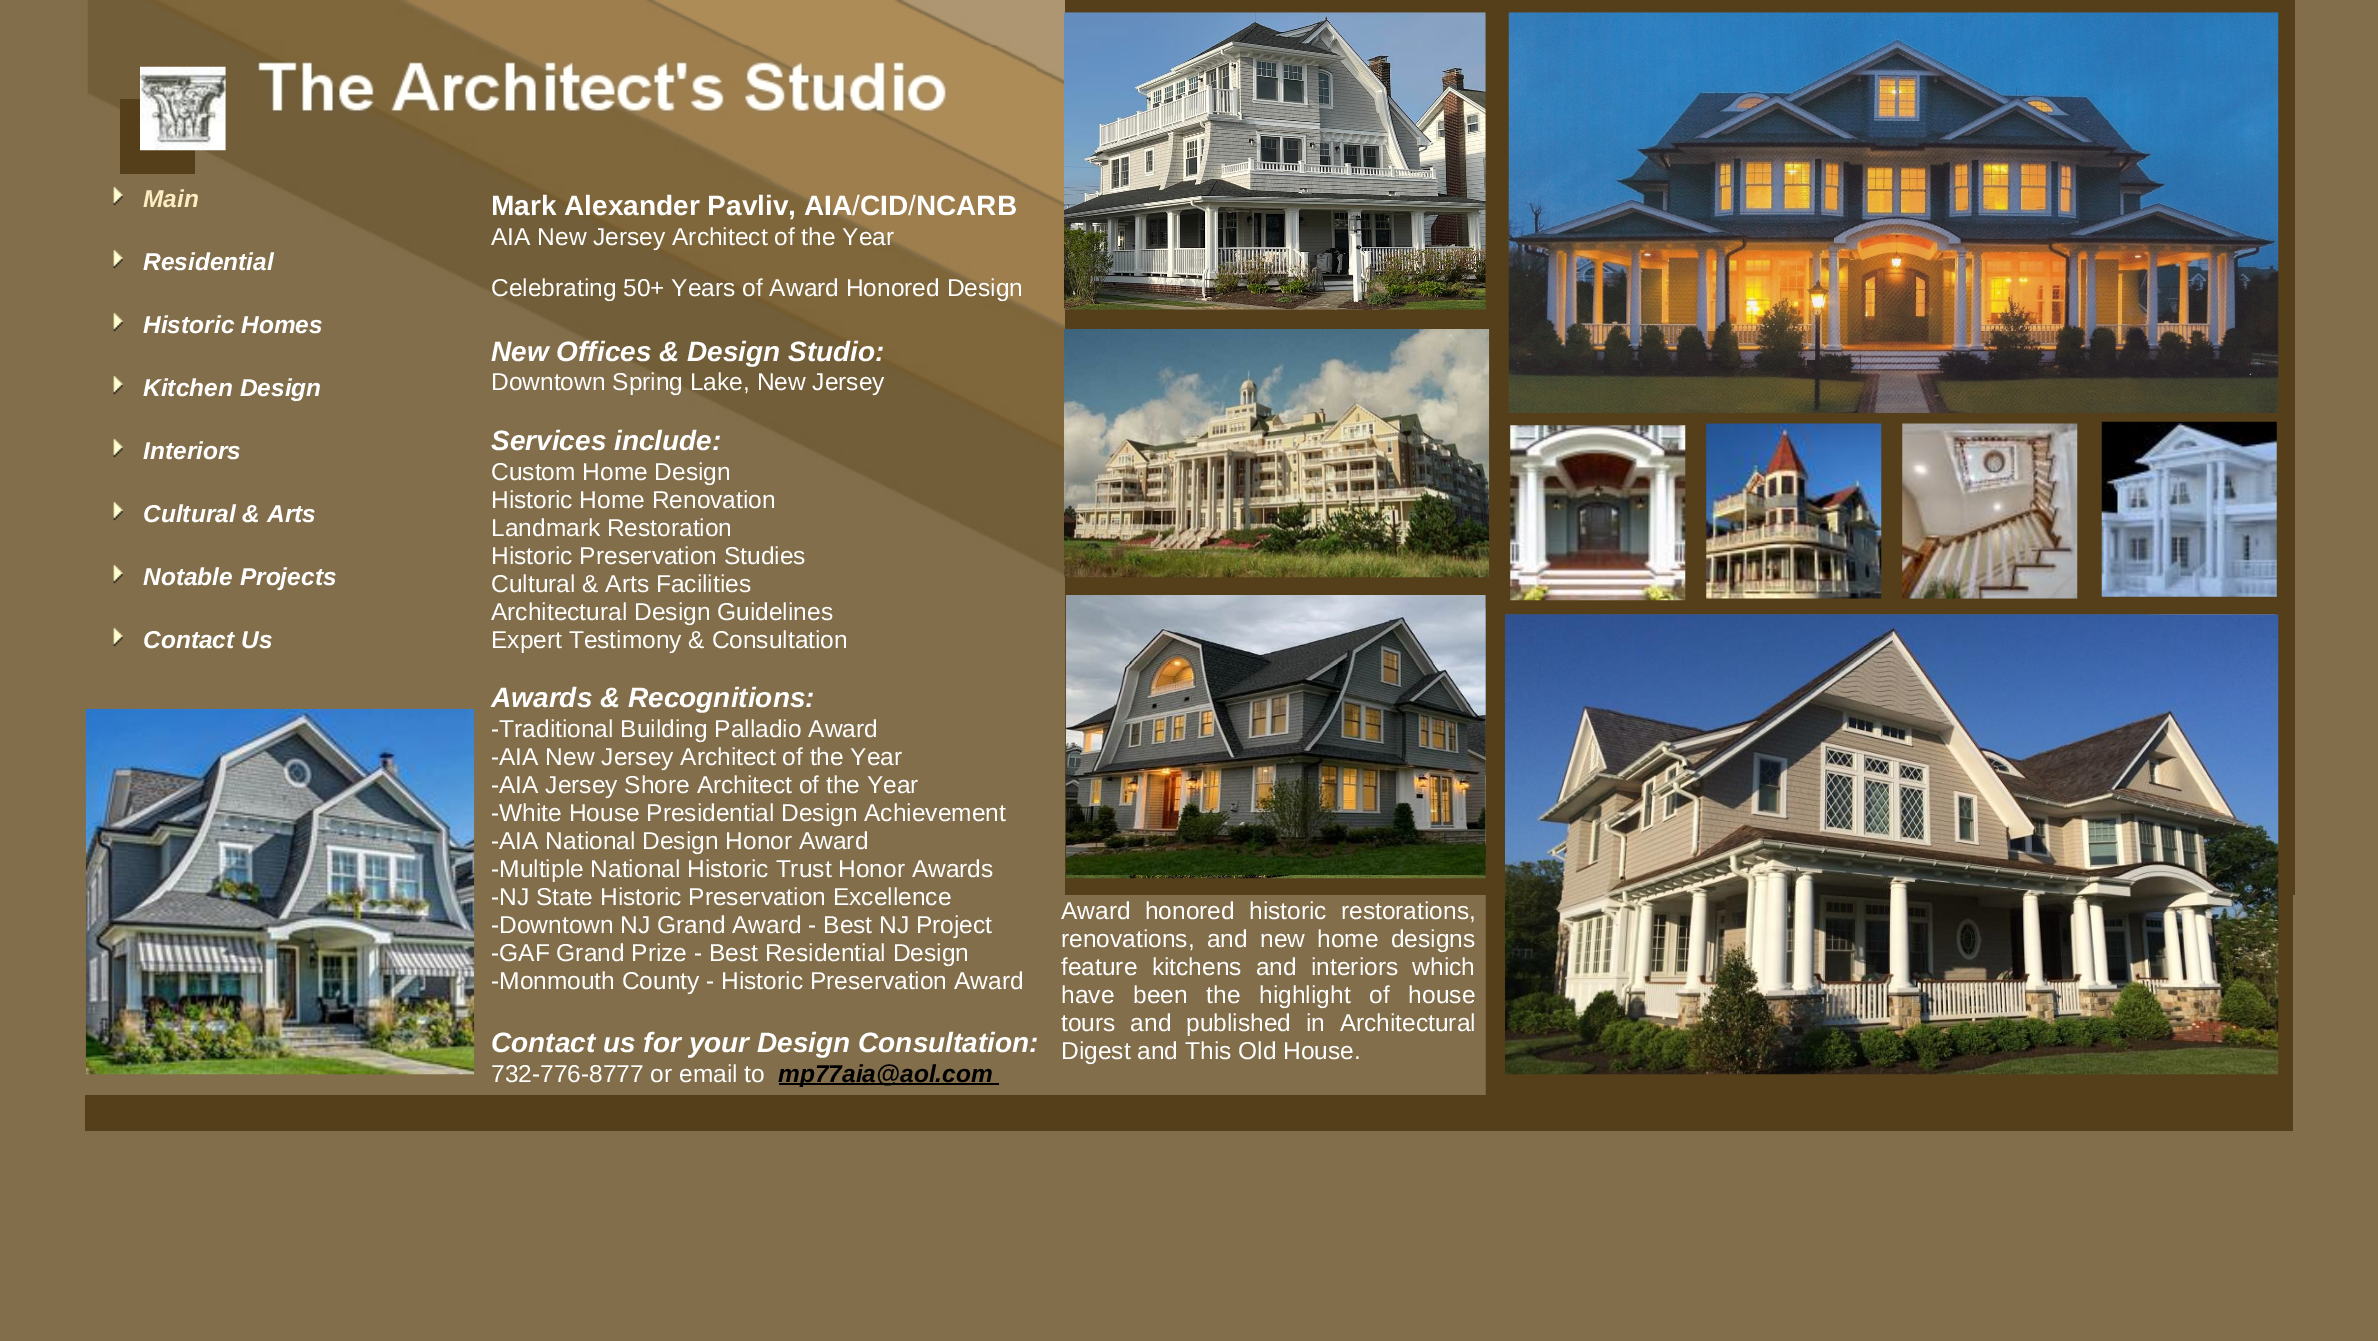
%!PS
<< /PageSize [2378 1341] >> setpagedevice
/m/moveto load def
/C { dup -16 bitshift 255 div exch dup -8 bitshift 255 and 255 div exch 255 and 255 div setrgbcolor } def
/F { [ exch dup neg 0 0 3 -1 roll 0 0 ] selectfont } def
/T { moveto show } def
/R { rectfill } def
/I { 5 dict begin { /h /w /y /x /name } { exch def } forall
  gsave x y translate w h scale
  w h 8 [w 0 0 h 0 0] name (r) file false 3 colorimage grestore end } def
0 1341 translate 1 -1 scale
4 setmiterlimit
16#826E4A C
0 0 2378 1341 R
(1.rgb) 87 0 978 576 I
16#553F1A C
1065 0 1230 895 R
120 99 75 75 R
(2.rgb) 140 66 86 85 I
(3.rgb) 257 45 779 135 I
(4.rgb) 1064 12 422 298 I
(5.rgb) 1508 12 771 401 I
(6.rgb) 113 186 10 20 I
/LiberationSans-BoldItalic 24.5 F
16#FDEDC0 C
(Main) 143 207 T
(6.rgb) 113 249 10 20 I
16#FFFFFF C
(Residential) 143 270 T
(6.rgb) 113 312 10 20 I
(Historic Homes) 143 333 T
(6.rgb) 113 375 10 20 I
(Kitchen Design) 143 396 T
(6.rgb) 113 438 10 20 I
(Interiors) 143 459 T
(6.rgb) 113 501 10 20 I
(Cultural & Arts) 143 522 T
(7.rgb) 113 564 10 20 I
(Notable Projects) 143 585 T
(8.rgb) 113 627 10 20 I
(Contact Us) 143 648 T
/LiberationSans-Bold 28 F
(Mark Alexander Pavliv, AIA CID NCARB) 491 215 T
/LiberationSans-Regular 28 F
(/) 852 215 T
(/) 908 215 T
/LiberationSans-Regular 24.5 F
(AIA New Jersey Architect of the Year) 491 245 T
(Celebrating 50+ Years of Award Honored Design) 491 296 T
/LiberationSans-BoldItalic 28 F
(New Offices & Design Studio:) 491 361 T
/LiberationSans-Regular 24.5 F
(Downtown Spring Lake, New Jersey) 491 390 T
/LiberationSans-BoldItalic 28 F
(Services include:) 491 450 T
/LiberationSans-Regular 24.5 F
(Custom Home Design) 491 480 T
(Historic Home Renovation) 491 508 T
(Landmark Restoration) 491 536 T
(Historic Preservation Studies) 491 564 T
(Cultural & Arts Facilities) 491 592 T
(Architectural Design Guidelines) 491 620 T
(Expert Testimony & Consultation) 491 648 T
/LiberationSans-BoldItalic 28 F
(Awards & Recognitions:) 491 707 T
/LiberationSans-Regular 24.5 F
(-Traditional Building Palladio Award) 491 737 T
(-AIA New Jersey Architect of the Year) 491 765 T
(-AIA Jersey Shore Architect of the Year) 491 793 T
(-White House Presidential Design Achievement) 491 821 T
(-AIA National Design Honor Award) 491 849 T
(-Multiple National Historic Trust Honor Awards) 491 877 T
(-NJ State Historic Preservation Excellence) 491 905 T
(-Downtown NJ Grand Award - Best NJ Project) 491 933 T
(-GAF Grand Prize - Best Residential Design) 491 961 T
(-Monmouth County - Historic Preservation Award) 491 989 T
/LiberationSans-BoldItalic 28 F
(Contact us for your Design Consultation:) 491 1052 T
/LiberationSans-Regular 24.5 F
(732-776-8777 or email to) 491 1082 T
16#000000 C
779 1083 220 2 R
/LiberationSans-BoldItalic 24.5 F
(mp77aia@aol.com) 778 1082 T
(9.rgb) 1064 329 426 249 I
(10.rgb) 1510 425 176 176 I
(11.rgb) 1706 423 176 176 I
(12.rgb) 1902 423 176 176 I
(13.rgb) 2101 421 176 176 I
(15.rgb) 1065 607 421 272 I
(14.rgb) 1065 595 421 280 I
(16.rgb) 1505 614 770 1 I
(17.rgb) 85 708 390 367 I
16#553F1A C
1486 895 807 236 R
(18.rgb) 1505 614 774 461 I
/LiberationSans-Regular 24.5 F
16#FFFFFF C
1061 919 m 7.5 0 32 (Award honored historic restorations,) widthshow
1061 947 m 5.5 0 32 (renovations, and new home designs) widthshow
1061 975 m 7.5 0 32 (feature kitchens and interiors which) widthshow
1061 1003 m 12 0 32 (have been the highlight of house) widthshow
1061 1031 m 8 0 32 (tours and published in Architectural) widthshow
(Digest and This Old House.) 1061 1059 T
16#77623E C
1485 895 1 200 R
16#553F1A C
85 1095 1401 36 R
showpage
